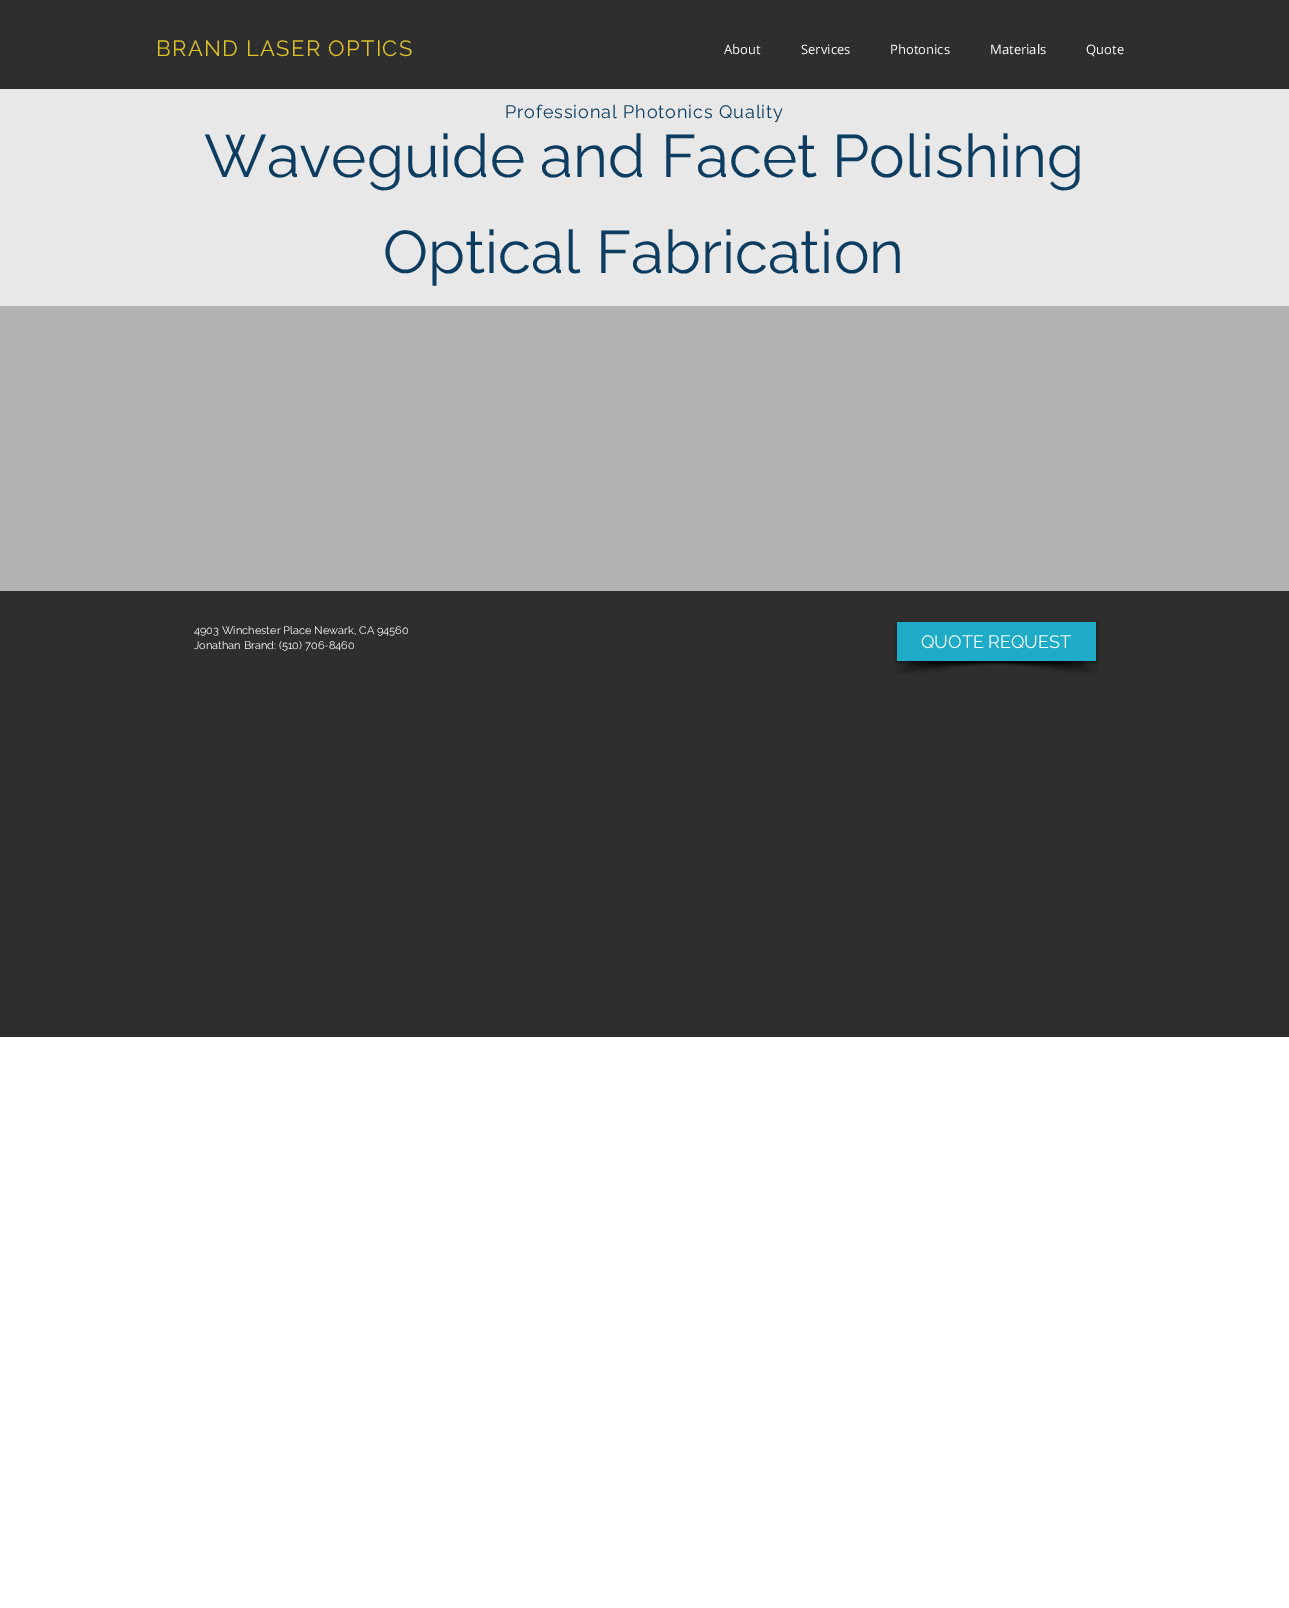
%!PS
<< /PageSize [1289 1608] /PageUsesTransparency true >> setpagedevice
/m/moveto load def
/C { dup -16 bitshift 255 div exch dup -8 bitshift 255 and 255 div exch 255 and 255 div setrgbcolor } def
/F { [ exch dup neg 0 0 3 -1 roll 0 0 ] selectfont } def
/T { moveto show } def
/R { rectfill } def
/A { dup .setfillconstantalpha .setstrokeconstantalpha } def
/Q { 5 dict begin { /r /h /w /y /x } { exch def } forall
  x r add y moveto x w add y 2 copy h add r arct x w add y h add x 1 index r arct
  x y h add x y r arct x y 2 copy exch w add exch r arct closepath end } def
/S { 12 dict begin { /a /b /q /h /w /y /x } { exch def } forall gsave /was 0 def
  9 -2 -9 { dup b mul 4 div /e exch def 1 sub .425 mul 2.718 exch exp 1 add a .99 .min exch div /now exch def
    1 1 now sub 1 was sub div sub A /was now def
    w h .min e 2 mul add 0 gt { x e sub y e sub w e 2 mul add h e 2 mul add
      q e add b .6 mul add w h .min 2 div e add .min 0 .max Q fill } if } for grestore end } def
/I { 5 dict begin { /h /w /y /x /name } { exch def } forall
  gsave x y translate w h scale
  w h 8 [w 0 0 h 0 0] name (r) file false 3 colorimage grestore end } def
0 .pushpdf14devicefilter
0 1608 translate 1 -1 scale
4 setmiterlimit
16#FFFFFF C
0 0 1289 1608 R
16#2F2E2E C
0 0 1289 89 R
/Raleway-Regular 22 F
16#DEC328 C
156 56 m 1.3 0 (BRAND LASER OPTICS) ashow
/OpenSans-Regular 13 F
16#FFFFFF C
(About) 724 54 T
(Services) 801 54 T
(Photonics) 890 54 T
(Materials) 990 54 T
(Quote) 1086 54 T
16#E8E8E8 C
0 89 1289 217 R
/Raleway-Regular 18 F
16#0C3C60 C
505 118 m .9 0 (Professional Photonics Quality) ashow
/Raleway-Regular 60 F
(Waveguide and Facet Polishing) 204 177 T
(Optical Fabrication) 383 273 T
16#B2B2B2 C
0 306 1289 285 R
16#2F2E2E C
0 591 1289 446 R
/Raleway-Regular 11 F
16#FFFFFF C
(4903 Winchester Place Newark, CA 94560) 194 634 T
(Jonathan Brand: \(510\) 706-8460) 194 649 T
(1.rgb) 896 661 127 14 I
(2.rgb) 986 661 111 14 I
16#000000 C
897 623 199 39 0 2 .6 S
16#1EABC7 C
897 622 199 39 R
/Raleway-Regular 18 F
16#FFFFFF C
(QUOTE REQUEST) 921 648 T
.poppdf14devicefilter showpage
